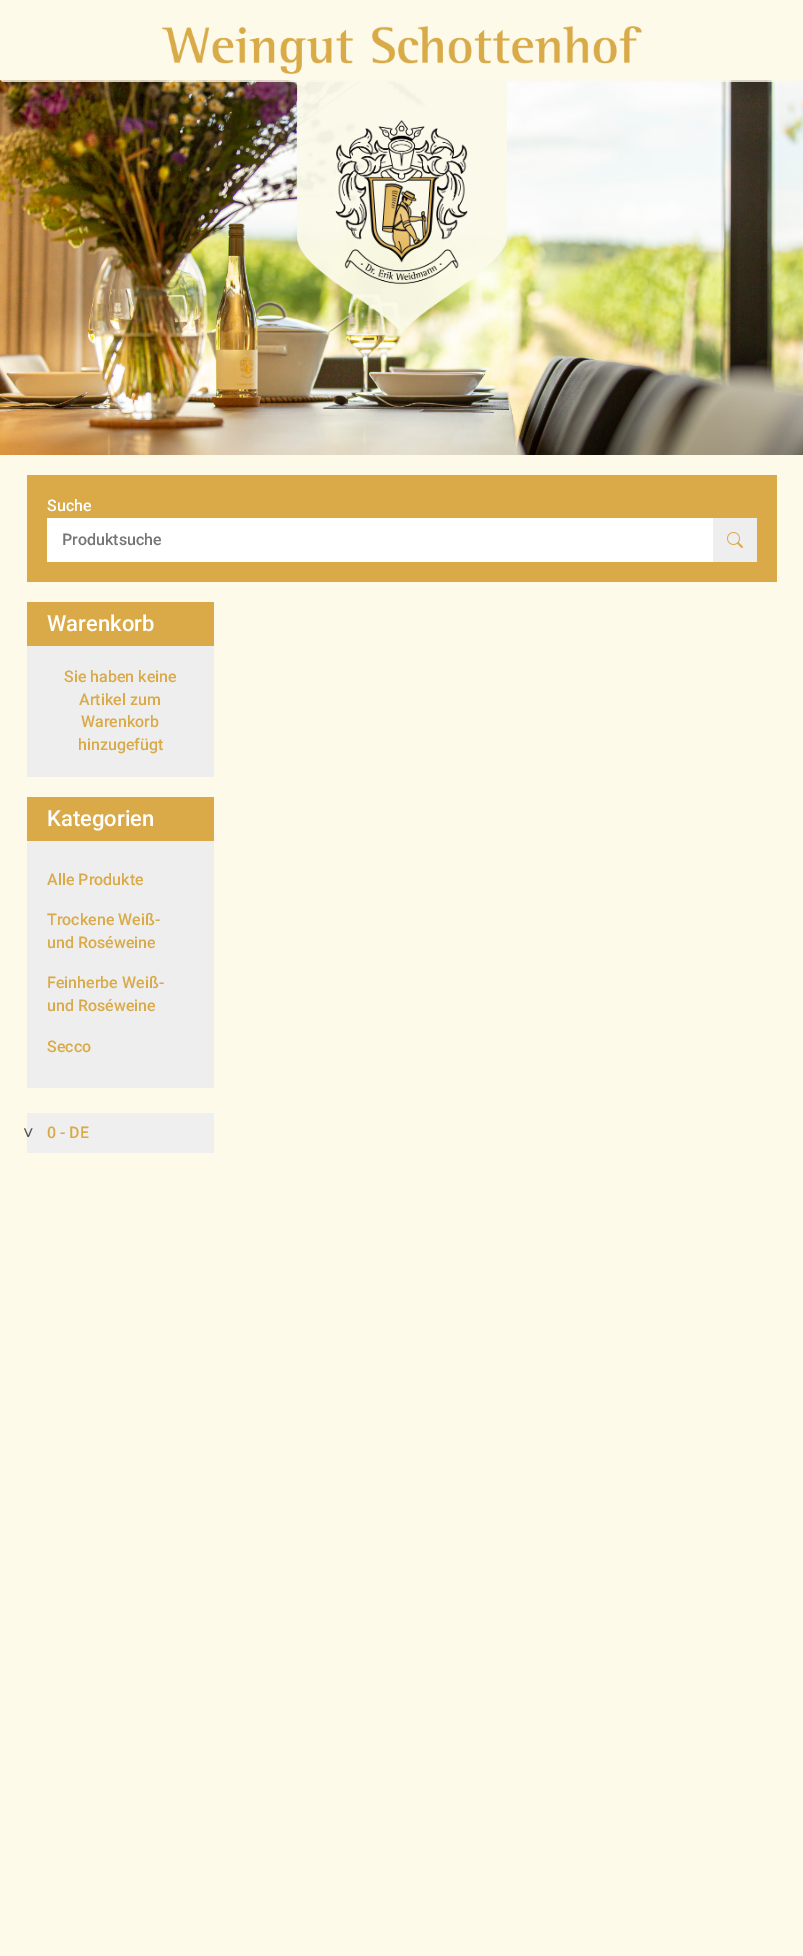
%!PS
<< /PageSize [803 1956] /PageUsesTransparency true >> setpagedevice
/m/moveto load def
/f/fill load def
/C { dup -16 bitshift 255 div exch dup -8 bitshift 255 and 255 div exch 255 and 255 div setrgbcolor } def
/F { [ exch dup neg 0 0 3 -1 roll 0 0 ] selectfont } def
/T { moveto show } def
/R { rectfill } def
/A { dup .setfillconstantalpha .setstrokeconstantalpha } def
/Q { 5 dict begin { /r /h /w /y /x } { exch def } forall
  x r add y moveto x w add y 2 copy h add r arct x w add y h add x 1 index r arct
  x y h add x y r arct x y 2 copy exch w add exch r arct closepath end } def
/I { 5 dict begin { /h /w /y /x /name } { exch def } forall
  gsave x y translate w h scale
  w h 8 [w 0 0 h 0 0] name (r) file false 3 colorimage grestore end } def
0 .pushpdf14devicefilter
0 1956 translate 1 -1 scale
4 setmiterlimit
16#FDFAE9 C
0 0 803 1956 R
(2.rgb) 0 80 803 375 I
0.8 A
0 0 803 82 4 Q f
1 A
(1.rgb) 162 26 480 48 I
(3.rgb) 297 80 210 254 I
16#D9AA47 C
27 475 750 107 R
/Roboto-Medium 16 F
16#FFFFFF C
(Suche) 47 511 T
47 518 666 44 R
16#757575 C
(Produktsuche) 62 545 T
16#EEEEEE C
713 518 44 44 R
(4.rgb) 727 532 16 16 I
16#D9AA47 C
27 602 187 44 R
/Roboto-Medium 22 F
16#FFFFFF C
(Warenkorb) 47 631 T
16#EEEEEE C
27 646 187 131 R
/Roboto-Medium 16 F
16#D9AA47 C
(Sie haben keine) 64 682 T
(Artikel zum) 79 705 T
(Warenkorb) 81 727 T
(hinzugefügt) 78 750 T
27 797 187 44 R
/Roboto-Medium 22 F
16#FFFFFF C
(Kategorien) 47 826 T
16#EEEEEE C
27 841 187 247 R
/Roboto-Medium 16 F
16#D9AA47 C
(Alle Produkte) 47 885 T
(Trockene Weiß-) 47 925 T
(und Roséweine) 47 948 T
(Feinherbe Weiß-) 47 988 T
(und Roséweine) 47 1011 T
(Secco) 47 1052 T
16#EFEFEF C
27 1113 187 40 R
/LiberationSans-Regular 18 F
16#50504F C
23 1139 m 11 0 (˅) ashow
/Roboto-Medium 16 F
16#D9AA47 C
(0 - DE) 47 1138 T
.poppdf14devicefilter showpage
